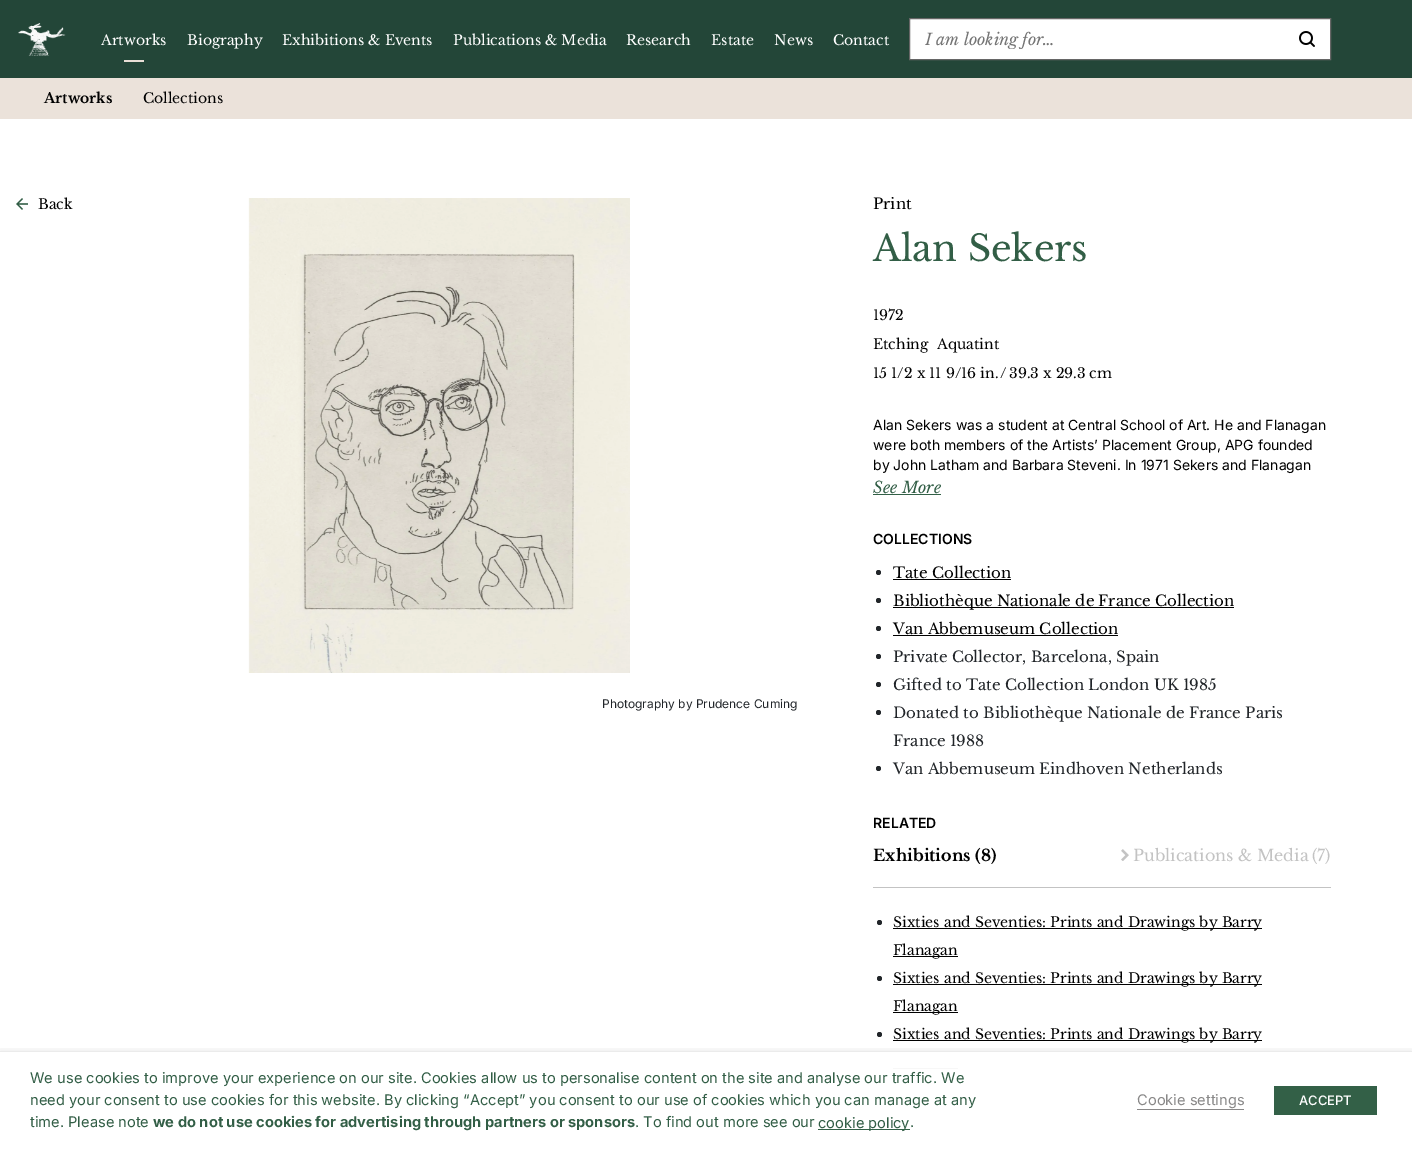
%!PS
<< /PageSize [1412 1149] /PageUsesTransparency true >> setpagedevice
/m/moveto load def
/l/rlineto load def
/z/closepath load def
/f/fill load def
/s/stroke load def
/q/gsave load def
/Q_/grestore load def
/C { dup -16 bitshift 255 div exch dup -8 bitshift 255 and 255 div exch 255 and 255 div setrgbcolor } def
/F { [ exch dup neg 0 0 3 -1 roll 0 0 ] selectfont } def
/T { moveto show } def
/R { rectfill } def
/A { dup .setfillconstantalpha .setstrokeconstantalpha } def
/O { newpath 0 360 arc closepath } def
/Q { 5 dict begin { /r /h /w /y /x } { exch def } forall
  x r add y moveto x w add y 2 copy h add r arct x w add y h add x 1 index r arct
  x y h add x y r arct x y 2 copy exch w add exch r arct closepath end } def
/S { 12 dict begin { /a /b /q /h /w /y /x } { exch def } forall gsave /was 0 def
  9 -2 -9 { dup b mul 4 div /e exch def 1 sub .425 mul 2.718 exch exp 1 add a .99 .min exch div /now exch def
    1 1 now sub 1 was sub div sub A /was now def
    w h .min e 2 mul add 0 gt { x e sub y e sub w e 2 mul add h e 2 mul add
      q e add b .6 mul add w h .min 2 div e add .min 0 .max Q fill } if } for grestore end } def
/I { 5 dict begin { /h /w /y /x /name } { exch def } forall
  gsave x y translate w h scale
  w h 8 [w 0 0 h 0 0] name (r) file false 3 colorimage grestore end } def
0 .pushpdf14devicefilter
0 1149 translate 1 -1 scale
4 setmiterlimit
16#FFFFFF C
0 0 1412 1149 R
16#234638 C
0 0 1412 78 R
(1.rgb) 18 23 48 33 I
/LibreBaskerville-Regular 14 F
16#FFFFFF C
(Artworks) 101 45 T
16#E9DFD6 C
124 60 20 2 R
16#FFFFFF C
(Biography) 187 45 T
(Exhibitions & Events) 282 45 T
(Publications & Media) 453 45 T
(Research) 626 45 T
(Estate) 711 45 T
(News) 774 45 T
(Contact) 833 45 T
909.5 18.5 m 421 0 l 0 41 l -421 0 l z q f Q_
16#666666 C
s
q
925 29 329 20 rectclip
/LibreBaskerville-Italic 16 F
16#757575 C
(I am looking for…) 925 45 T
Q_
(2.rgb) 1299 31 16 16 I
16#EBE2DA C
0 78 1412 41 R
/LibreBaskerville-Bold 14 F
16#000000 C
(Artworks) 44 103 T
/LibreBaskerville-Regular 14 F
(Collections) 143 103 T
(3.rgb) 16 198 12 12 I
(Back) 38 209 T
(4.rgb) 248 198 382 475 I
/Inter-Regular 12 F
16#212529 C
(Photography by Prudence Cuming) 602 708 T
/LibreBaskerville-Regular 15 F
16#000000 C
(Print) 873 209 T
/LibreBaskerville-Regular 36 F
16#325E46 C
(Alan Sekers) 873 261 T
/LibreBaskerville-Regular 14 F
16#000000 C
(1972) 873 320 T
(Etching) 873 349 T
(Aquatint) 937 349 T
(15 1/2 x 11 9/16 in.) 873 378 T
(/) 1000 378 T
(39.3 x 29.3 cm) 1009 378 T
/Inter-Regular 14 F
(Alan Sekers was a student at Central School of Art. He and Flanagan) 873 430 T
(were both members of the Artists’ Placement Group, APG founded) 873 450 T
(by John Latham and Barbara Steveni. In 1971 Sekers and Flanagan) 873 470 T
/LibreBaskerville-Italic 16 F
16#325E46 C
(See More) 873 493 T
16#336047 C
873 494 68 1 R
/Inter-SemiBold 14 F
16#000000 C
(COLLECTIONS) 873 544 T
16#212529 C
878.5 572.5 2.5 O f
/LibreBaskerville-Regular 15 F
16#000000 C
(Tate Collection) 893 578 T
893 579 118 1 R
16#212529 C
878.5 600.5 2.5 O f
16#000000 C
893 607 341 1 R
(Bibliothèque Nationale de France Collection) 893 606 T
16#212529 C
878.5 628.5 2.5 O f
16#000000 C
(Van Abbemuseum Collection) 893 634 T
893 635 225 1 R
16#212529 C
878.5 656.5 2.5 O f
(Private Collector, Barcelona, Spain) 893 662 T
878.5 684.5 2.5 O f
(Gifted to Tate Collection London UK 1985) 893 690 T
878.5 712.5 2.5 O f
(Donated to Bibliothèque Nationale de France Paris) 893 718 T
(France 1988) 893 746 T
878.5 768.5 2.5 O f
(Van Abbemuseum Eindhoven Netherlands) 893 774 T
/Inter-SemiBold 14 F
16#000000 C
(RELATED) 873 828 T
16#C3C3C3 C
873 887 458 1 R
/LibreBaskerville-Bold 16 F
16#000000 C
(Exhibitions \(8\)) 873 861 T
(5.rgb) 1121 849 8 12 I
/LibreBaskerville-Regular 16 F
16#C3C3C3 C
(Publications & Media) 1133 861 T
(\(7\)) 1312 861 T
16#212529 C
879.5 922.5 2.5 O f
16#000000 C
893 928 369 1 R
/LibreBaskerville-Regular 14 F
(Sixties and Seventies: Prints and Drawings by Barry) 893 927 T
893 956 65 1 R
(Flanagan) 893 955 T
16#212529 C
879.5 978.5 2.5 O f
16#000000 C
893 984 369 1 R
(Sixties and Seventies: Prints and Drawings by Barry) 893 983 T
893 1012 65 1 R
(Flanagan) 893 1011 T
16#212529 C
879.5 1034.5 2.5 O f
16#000000 C
893 1040 369 1 R
(Sixties and Seventies: Prints and Drawings by Barry) 893 1039 T
16#F7F7F7 C
893 1068 65 1 R
q
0 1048 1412 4 rectclip
16#000000 C
0 1057 1412 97 0 5 .5 S
Q_
/Inter-Regular 14.67 F
16#325E46 C
(We use cookies to improve your experience on our site. Cookies allow us to personalise content on the site and analyse our traffic. We) 30 1083 T
(need your consent to use cookies for this website. By clicking “Accept” you consent to our use of cookies which you can manage at any) 30 1105 T
(time. Please note) 30 1127 T
/Inter-Bold 14.67 F
(we do not use cookies for advertising through partners or sponsors) 153 1127 T
/Inter-Regular 14.67 F
(. To find out more see our) 635 1127 T
16#336047 C
818 1129 92 1 R
16#325E46 C
(cookie policy) 818 1128 T
(.) 910 1127 T
16#898888 C
(Cookie settings) 1137 1105 T
1137 1109 107 1 R
16#336047 C
1274 1086 103 29 R
/Inter-Medium 13 F
16#FFFFFF C
(ACCEPT) 1299 1105 T
.poppdf14devicefilter showpage
